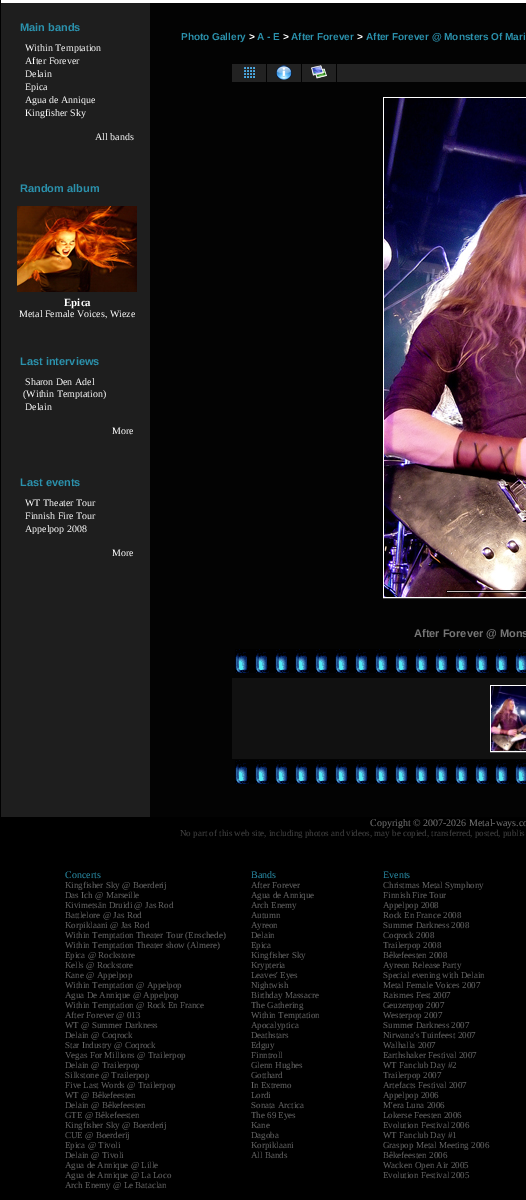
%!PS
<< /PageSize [526 1200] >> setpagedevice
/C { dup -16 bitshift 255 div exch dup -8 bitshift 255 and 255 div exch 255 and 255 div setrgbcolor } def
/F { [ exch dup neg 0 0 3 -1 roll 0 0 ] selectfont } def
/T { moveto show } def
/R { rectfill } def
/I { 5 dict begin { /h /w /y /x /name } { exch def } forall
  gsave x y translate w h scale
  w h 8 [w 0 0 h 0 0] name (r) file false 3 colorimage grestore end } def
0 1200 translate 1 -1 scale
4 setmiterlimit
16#FFFFFF C
0 0 526 1200 R
16#000000 C
0 0 1 1200 R
16#1E1E1E C
1 3 149 814 R
/LiberationSans-Bold 11 F
16#2B91AC C
(Main bands) 20 31 T
/LiberationSerif-Regular 10 F
16#FFFFFF C
(Within Temptation) 25 51 T
(After Forever) 25 64 T
(Delain) 25 77 T
(Epica) 25 90 T
(Agua de Annique) 25 103 T
(Kingfisher Sky) 25 116 T
(All bands) 95 140 T
/LiberationSans-Bold 11 F
16#2B91AC C
(Random album) 20 192 T
(1.rgb) 17 206 120 86 I
/LiberationSerif-Bold 11 F
16#FFFFFF C
(Epica) 64 306 T
/LiberationSerif-Regular 10 F
(Metal Female Voices, Wieze) 19 317 T
/LiberationSans-Bold 11 F
16#2B91AC C
(Last interviews) 20 365 T
/LiberationSerif-Regular 10 F
16#FFFFFF C
(Sharon Den Adel) 25 385 T
(\(Within Temptation\)) 23 397 T
(Delain) 25 410 T
(More) 112 434 T
/LiberationSans-Bold 11 F
16#2B91AC C
(Last events) 20 486 T
/LiberationSerif-Regular 10 F
16#FFFFFF C
(WT Theater Tour) 25 506 T
(Finnish Fire Tour) 25 519 T
(Appelpop 2008) 25 532 T
(More) 112 556 T
16#030303 C
150 3 376 814 R
/LiberationSans-Bold 10 F
16#2B91AC C
(Photo Gallery) 181 40 T
16#FFFFFF C
(>) 249 40 T
16#2B91AC C
(A - E) 257 40 T
16#FFFFFF C
(>) 283 40 T
16#2B91AC C
(After Forever) 291 40 T
16#FFFFFF C
(>) 357 40 T
16#2B91AC C
(After Forever @ Monsters Of Mari) 366 40 T
16#222222 C
232 64 34 18 R
(2.rgb) 244 67 11 11 I
267 64 34 18 R
(3.rgb) 276 65 16 15 I
302 64 34 18 R
(4.rgb) 311 65 16 14 I
337 64 189 18 R
16#FFFFFF C
383.5 97.5 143 500 rectstroke
(5.rgb) 384 98 142 499 I
/LiberationSans-Bold 11 F
16#767676 C
(After Forever @ Mons) 414 637 T
(6.rgb) 235 649 291 24 I
16#111111 C
232 678 294 81 R
16#FFFFFF C
490.5 685.5 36 66 rectstroke
(7.rgb) 491 686 35 65 I
(6.rgb) 235 760 291 24 I
16#000000 C
1 817 525 383 R
/LiberationSerif-Regular 10 F
16#767676 C
(Copyright © 2007-2026 Metal-ways.co) 370 826 T
/LiberationSerif-Regular 9 F
16#444444 C
(No part of this web site, including photos and videos, may be copied, transferred, posted, publis) 180 836 T
/LiberationSerif-Regular 10 F
16#2B91AC C
(Concerts) 65 878 T
/LiberationSerif-Regular 9 F
16#666666 C
(Kingfisher Sky @ Boerderij) 65 888 T
(Das Ich @ Marseille) 65 898 T
(Kivimetsän Druidi @ Jas Rod) 65 908 T
(Battlelore @ Jas Rod) 65 918 T
(Korpiklaani @ Jas Rod) 65 928 T
(Within Temptation Theater Tour \(Enschede\)) 65 938 T
(Within Temptation Theater show \(Almere\)) 65 948 T
(Epica @ Rockstore) 65 958 T
(Kells @ Rockstore) 65 968 T
(Kane @ Appelpop) 65 978 T
(Within Temptation @ Appelpop) 65 988 T
(Agua De Annique @ Appelpop) 65 998 T
(Within Temptation @ Rock En France) 65 1008 T
(After Forever @ 013) 65 1018 T
(WT @ Summer Darkness) 65 1028 T
(Delain @ Coqrock) 65 1038 T
(Star Industry @ Coqrock) 65 1048 T
(Vegas For Millions @ Trailerpop) 65 1058 T
(Delain @ Trailerpop) 65 1068 T
(Silkstone @ Trailerpop) 65 1078 T
(Five Last Words @ Trailerpop) 65 1088 T
(WT @ Bêkefeesten) 65 1098 T
(Delain @ Bêkefeesten) 65 1108 T
(GTE @ Bêkefeesten) 65 1118 T
(Kingfisher Sky @ Boerderij) 65 1128 T
(CUE @ Boerderij) 65 1138 T
(Epica @ Tivoli) 65 1148 T
(Delain @ Tivoli) 65 1158 T
(Agua de Annique @ Lille) 65 1168 T
(Agua de Annique @ La Loco) 65 1178 T
(Arch Enemy @ Le Bataclan) 65 1188 T
/LiberationSerif-Regular 10 F
16#2B91AC C
(Bands) 251 878 T
/LiberationSerif-Regular 9 F
16#666666 C
(After Forever) 251 888 T
(Agua de Annique) 251 898 T
(Arch Enemy) 251 908 T
(Autumn) 251 918 T
(Ayreon) 251 928 T
(Delain) 251 938 T
(Epica) 251 948 T
(Kingfisher Sky) 251 958 T
(Krypteria) 251 968 T
(Leaves' Eyes) 251 978 T
(Nightwish) 251 988 T
(Birthday Massacre) 251 998 T
(The Gathering) 251 1008 T
(Within Temptation) 251 1018 T
(Apocalyptica) 251 1028 T
(Deathstars) 251 1038 T
(Edguy) 251 1048 T
(Finntroll) 251 1058 T
(Glenn Hughes) 251 1068 T
(Gotthard) 251 1078 T
(In Extremo) 251 1088 T
(Lordi) 251 1098 T
(Sonata Arctica) 251 1108 T
(The 69 Eyes) 251 1118 T
(Kane) 251 1128 T
(Dagoba) 251 1138 T
(Korpiklaani) 251 1148 T
(All Bands) 251 1158 T
/LiberationSerif-Regular 10 F
16#2B91AC C
(Events) 383 878 T
/LiberationSerif-Regular 9 F
16#666666 C
(Christmas Metal Symphony) 383 888 T
(Finnish Fire Tour) 383 898 T
(Appelpop 2008) 383 908 T
(Rock En France 2008) 383 918 T
(Summer Darkness 2008) 383 928 T
(Coqrock 2008) 383 938 T
(Trailerpop 2008) 383 948 T
(Bêkefeesten 2008) 383 958 T
(Ayreon Release Party) 383 968 T
(Special evening with Delain) 383 978 T
(Metal Female Voices 2007) 383 988 T
(Raismes Fest 2007) 383 998 T
(Geuzenpop 2007) 383 1008 T
(Westerpop 2007) 383 1018 T
(Summer Darkness 2007) 383 1028 T
(Nirwana's Tuinfeest 2007) 383 1038 T
(Walhalla 2007) 383 1048 T
(Earthshaker Festival 2007) 383 1058 T
(WT Fanclub Day #2) 383 1068 T
(Trailerpop 2007) 383 1078 T
(Artefacts Festival 2007) 383 1088 T
(Appelpop 2006) 383 1098 T
(M'era Luna 2006) 383 1108 T
(Lokerse Feesten 2006) 383 1118 T
(Evolution Festival 2006) 383 1128 T
(WT Fanclub Day #1) 383 1138 T
(Graspop Metal Meeting 2006) 383 1148 T
(Bêkefeesten 2006) 383 1158 T
(Wacken Open Air 2005) 383 1168 T
(Evolution Festival 2005) 383 1178 T
showpage
